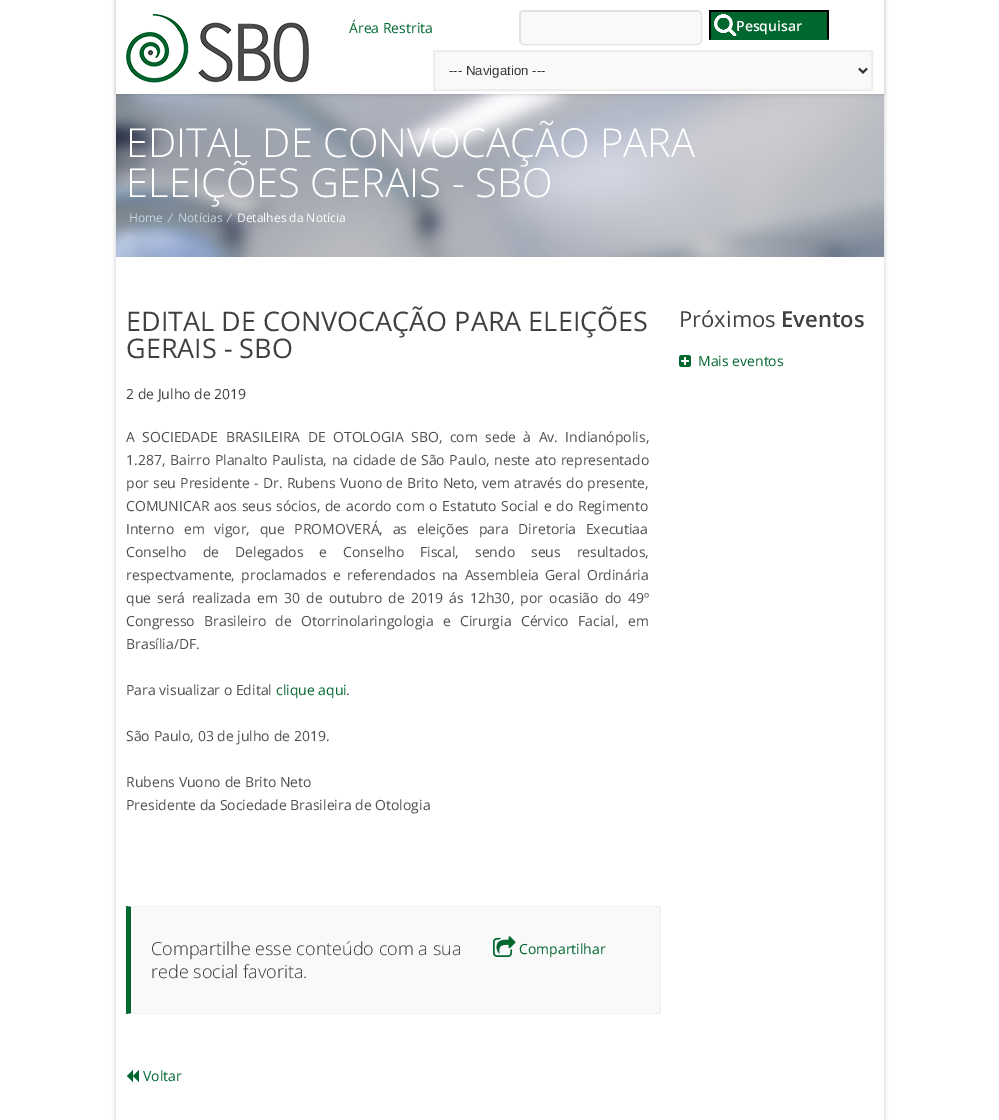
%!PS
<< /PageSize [999 1120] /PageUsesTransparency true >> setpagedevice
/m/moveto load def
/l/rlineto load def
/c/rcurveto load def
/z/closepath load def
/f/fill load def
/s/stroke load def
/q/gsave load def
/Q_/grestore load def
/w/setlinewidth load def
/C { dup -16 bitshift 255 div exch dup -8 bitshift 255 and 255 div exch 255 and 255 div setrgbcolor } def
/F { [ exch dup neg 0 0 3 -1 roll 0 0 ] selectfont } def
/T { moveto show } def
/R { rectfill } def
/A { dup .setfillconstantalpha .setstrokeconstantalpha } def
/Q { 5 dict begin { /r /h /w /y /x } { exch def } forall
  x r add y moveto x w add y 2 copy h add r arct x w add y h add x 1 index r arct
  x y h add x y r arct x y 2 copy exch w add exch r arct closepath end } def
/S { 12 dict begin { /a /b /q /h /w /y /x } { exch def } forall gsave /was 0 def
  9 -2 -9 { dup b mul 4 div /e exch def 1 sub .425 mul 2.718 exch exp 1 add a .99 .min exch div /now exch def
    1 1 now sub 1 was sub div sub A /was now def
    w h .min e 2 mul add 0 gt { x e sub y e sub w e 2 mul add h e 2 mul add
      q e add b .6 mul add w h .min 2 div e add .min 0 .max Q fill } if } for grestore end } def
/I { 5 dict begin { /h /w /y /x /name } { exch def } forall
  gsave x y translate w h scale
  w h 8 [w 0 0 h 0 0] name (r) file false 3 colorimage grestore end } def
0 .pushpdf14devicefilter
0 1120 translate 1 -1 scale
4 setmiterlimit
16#FFFFFF C
0 0 999 1120 R
q
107 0 m 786 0 l 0 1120 l -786 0 l z 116 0 m 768 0 l 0 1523 l -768 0 l z eoclip newpath
16#000000 C
116 0 768 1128 0 2.5 .2 S
Q_
(3.rgb) 116 94 768 163 I
q
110 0 m 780 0 l 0 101 l -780 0 l z 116 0 m 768 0 l 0 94 l -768 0 l z eoclip newpath
16#000000 C
116 1 768 94 0 1.5 .1 S
Q_
(1.rgb) 126 14 183 69 I
/OpenSans-Regular 14 F
16#00672F C
(Área Restrita) 349 33 T
16#F9F9F9 C
524 12 m 173 0 l 2 0 4 1 4 3 c 0 25 l 0 2 -2 4 -4 4 c -173 0 l -2 0 -3 -2 -3 -4 c 0 -25 l 0 -2 1 -3 3 -3 c z f
16#E1E1E1 C
519.5 10.5 182 34 4.5 Q s
522 11 178 1 R
520 13 1 30 R
16#00672F C
709 12 120 28 R
(2.rgb) 714 14 23 22 I
16#000000 C
709 10 120 2 R
829 10 m 0 30 l -2 -1 l 0 -27 l z f
16#00672F C
829 40 m -120 0 l 2 -1 l 116 0 l z f
16#000000 C
709 40 m 0 -30 l 2 2 l 0 27 l z f
/OpenSans-SemiBold 14 F
16#FFFFFF C
(Pesquisar) 736 31 T
16#F9F9F9 C
434 51 m 438 0 l 0 39 l -438 0 l z q f Q_
16#EEEEEE C
2 w
s
16#333333 C
859 68.5 m 4 4 l 4 -4 l s
/LiberationSans-Regular 13.25 F
16#383634 C
(--- Navigation ---) 449 75 T
/OpenSans-Light 40 F
16#FFFFFF C
(EDITAL DE CONVOCAÇÃO PARA) 126 157 T
(ELEIÇÕES GERAIS - SBO) 126 197 T
/OpenSans-Regular 12 F
16#C3D6DD C
(Home) 129 222 T
/OpenSans-Italic 12 F
(/) 168 222 T
/OpenSans-Regular 12 F
(Notícias) 178 222 T
/OpenSans-Italic 12 F
(/) 227 222 T
/OpenSans-Regular 12 F
16#FFFFFF C
(Detalhes da Notícia) 237 222 T
/OpenSans-Regular 27 F
16#404040 C
(EDITAL DE CONVOCAÇÃO PARA ELEIÇÕES) 126 331 T
(GERAIS - SBO) 126 358 T
/OpenSans-Regular 14 F
(2 de Julho de 2019) 126 399 T
16#4C4E51 C
126 442 m 3.75 0 32 (A SOCIEDADE BRASILEIRA DE OTOLOGIA SBO, com sede à Av. Indianópolis,) widthshow
126 465 m .9 0 32 (1.287, Bairro Planalto Paulista, na cidade de São Paulo, neste ato representado) widthshow
126 488 m .5 0 32 (por seu Presidente - Dr. Rubens Vuono de Brito Neto, vem através do presente,) widthshow
126 511 m 1.1 0 32 (COMUNICAR aos seus sócios, de acordo com o Estatuto Social e do Regimento) widthshow
126 534 m 6 0 32 (Interno em vigor, que PROMOVERÁ, as eleições para Diretoria Executiaa) widthshow
126 557 m 12.25 0 32 (Conselho de Delegados e Conselho Fiscal, sendo seus resultados,) widthshow
126 580 m 2.75 0 32 (respectvamente, proclamados e referendados na Assembleia Geral Ordinária) widthshow
126 603 m 2.6 0 32 (que será realizada em 30 de outubro de 2019 ás 12h30, por ocasião do 49º) widthshow
126 626 m 5.75 0 32 (Congresso Brasileiro de Otorrinolaringologia e Cirurgia Cérvico Facial, em) widthshow
(Brasília/DF.) 126 649 T
(Para visualizar o Edital) 126 695 T
16#00672F C
(clique aqui) 276 695 T
16#4C4E51 C
(.) 346 695 T
(São Paulo, 03 de julho de 2019.) 126 741 T
(Rubens Vuono de Brito Neto) 126 787 T
(Presidente da Sociedade Brasileira de Otologia) 126 810 T
16#F9F9F9 C
131 907 529 106 R
16#EEEEEE C
126 906 m 535 0 l -1 1 l -529 0 l z f
660 906 1 108 R
661 1014 m -535 0 l 5 -1 l 529 0 l z f
16#00672F C
126 1014 m 0 -108 l 5 1 l 0 106 l z f
/OpenSans-Light 18 F
16#383634 C
(Compartilhe esse conteúdo com a sua) 151 955 T
(rede social favorita.) 151 978 T
(4.rgb) 493 936 23 21 I
/OpenSans-Regular 14 F
16#00672F C
(Compartilhar) 519 954 T
(5.rgb) 127 1070 12 12 I
(Voltar) 143 1081 T
/OpenSans-Regular 22 F
16#404040 C
(Próximos) 679 327 T
/OpenSans-SemiBold 22 F
(Eventos) 781 327 T
(6.rgb) 679 355 12 12 I
/OpenSans-Regular 14 F
16#00672F C
(Mais eventos) 698 366 T
.poppdf14devicefilter showpage
